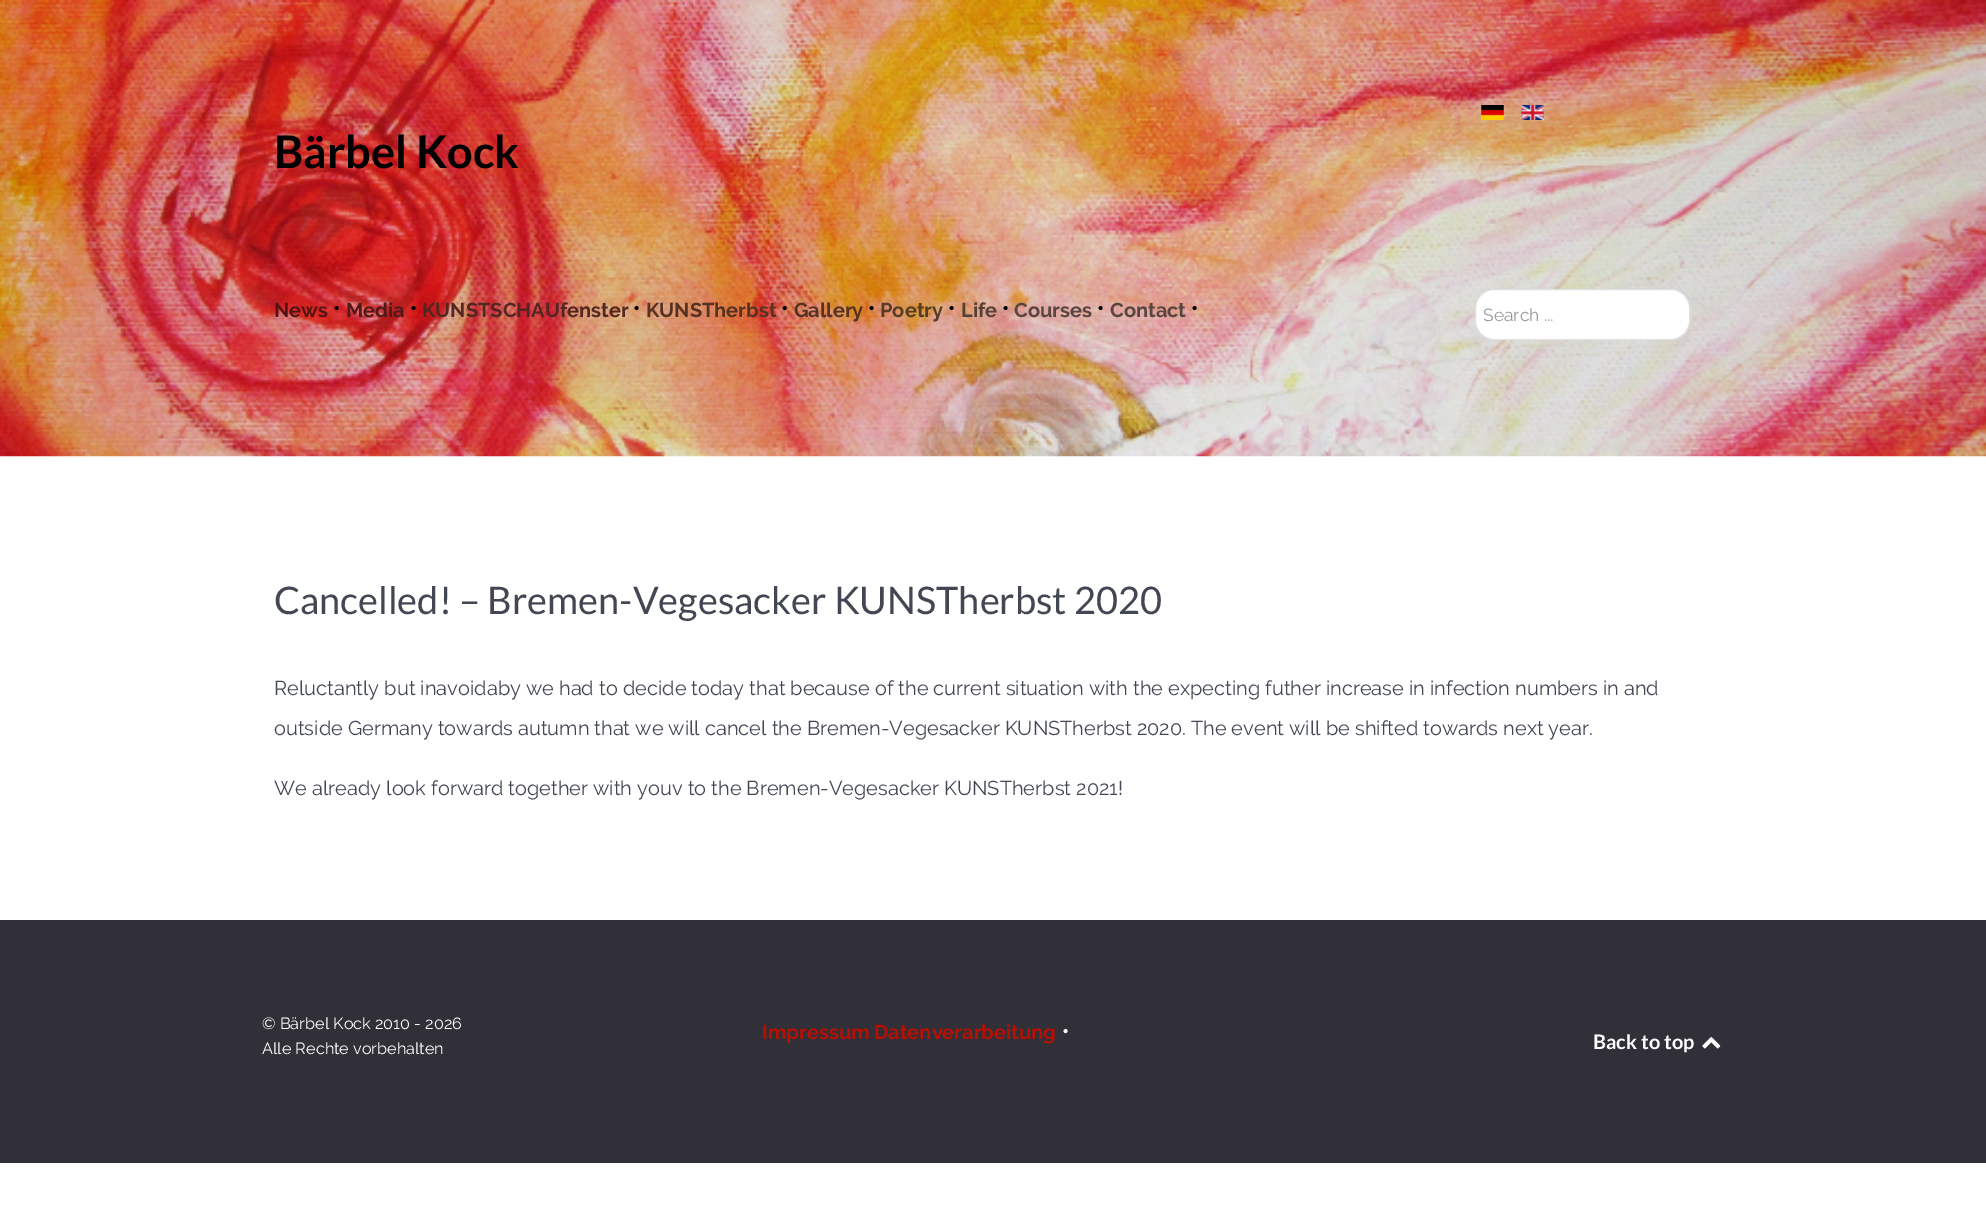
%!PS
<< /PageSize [1986 1211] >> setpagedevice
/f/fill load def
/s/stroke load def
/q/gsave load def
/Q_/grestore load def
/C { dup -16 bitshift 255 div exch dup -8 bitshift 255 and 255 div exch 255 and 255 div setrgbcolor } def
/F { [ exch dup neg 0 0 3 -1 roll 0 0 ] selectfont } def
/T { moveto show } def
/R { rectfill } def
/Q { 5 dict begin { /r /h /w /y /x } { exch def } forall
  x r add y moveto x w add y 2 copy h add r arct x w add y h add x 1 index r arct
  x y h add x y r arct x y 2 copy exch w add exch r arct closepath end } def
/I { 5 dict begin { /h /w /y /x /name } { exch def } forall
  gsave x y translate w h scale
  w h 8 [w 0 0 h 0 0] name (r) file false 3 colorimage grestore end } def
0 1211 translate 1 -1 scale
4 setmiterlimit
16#FFFFFF C
0 0 1986 1211 R
(1.rgb) 0 0 1986 457 I
(2.rgb) 1481 105 23 15 I
(3.rgb) 1521 105 23 15 I
/Lato-Bold 45 F
16#000000 C
(Bärbel Kock) 274 168 T
/Raleway-Bold 20 F
16#551413 C
(News) 274 317 T
16#000000 C
(•) 333 315 T
16#51191A C
(Media) 346 317 T
16#000000 C
(•) 410 315 T
16#542621 C
(KUNSTSCHAUfenster) 422 317 T
16#000000 C
(•) 633 315 T
16#573122 C
(KUNSTherbst) 646 317 T
16#000000 C
(•) 781 315 T
16#573122 C
(Gallery) 794 317 T
16#000000 C
(•) 868 315 T
16#583C25 C
(Poetry) 880 317 T
16#000000 C
(•) 948 315 T
16#594037 C
(Life) 961 317 T
16#000000 C
(•) 1002 315 T
16#594440 C
(Courses) 1014 317 T
16#000000 C
(•) 1097 315 T
16#594440 C
(Contact) 1110 317 T
16#000000 C
(•) 1191 315 T
16#FFFFFF C
1475.5 289.5 214 50 18.5 Q q f Q_
16#E0E0E5 C
s
/Raleway-Regular 17.5 F
16#999999 C
(Search ...) 1483 321 T
/Lato-Regular 38 F
16#424753 C
(Cancelled! – Bremen-Vegesacker KUNSTherbst 2020) 274 614 T
/Raleway-Regular 20 F
(Reluctantly but inavoidaby we had to decide today that because of the current situation with the expecting futher increase in infection numbers in and) 274 695 T
(outside Germany towards autumn that we will cancel the Bremen-Vegesacker KUNSTherbst 2020. The event will be shifted towards next year.) 274 735 T
(We already look forward together with youv to the Bremen-Vegesacker KUNSTherbst 2021!) 274 795 T
16#312F38 C
0 920 1986 243 R
/Raleway-Regular 16.25 F
16#FFFFFF C
(© Bärbel Kock 2010 - 2026) 262 1029 T
(Alle Rechte vorbehalten) 262 1054 T
/Raleway-Bold 20 F
16#B51004 C
(Impressum) 762 1039 T
(Datenverarbeitung) 874 1039 T
16#FFFFFF C
(•) 1062 1038 T
/Lato-Bold 20 F
(Back to top) 1593 1049 T
(4.rgb) 1702 1037 19 12 I
showpage
